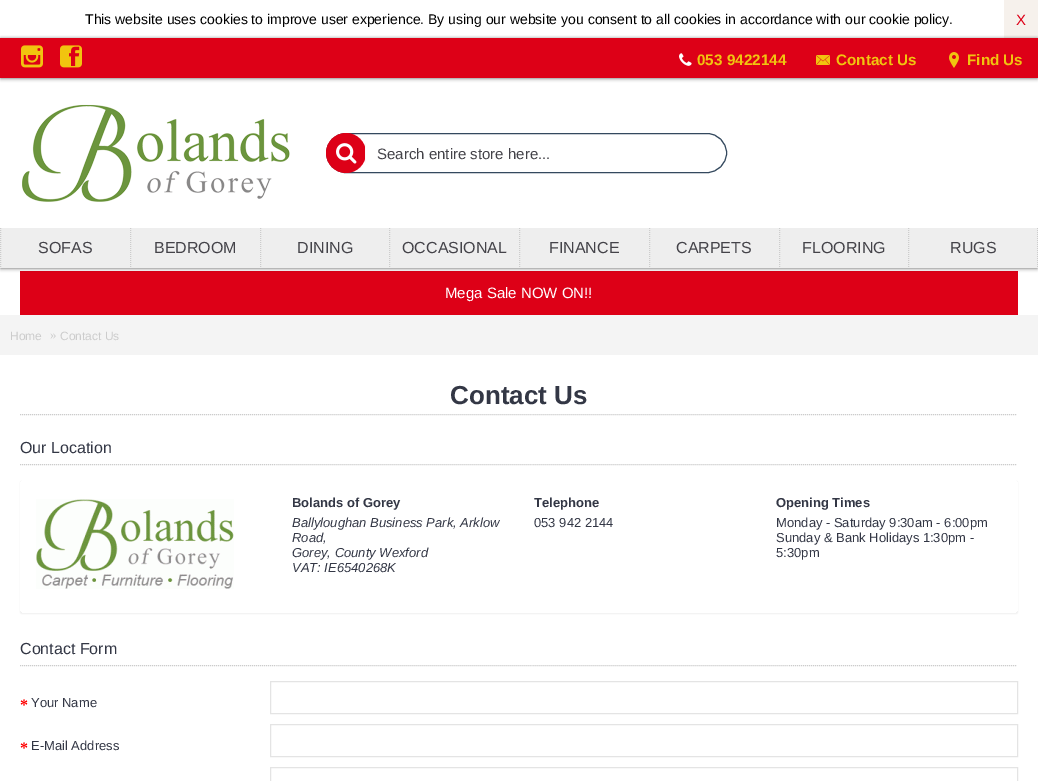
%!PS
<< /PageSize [1038 781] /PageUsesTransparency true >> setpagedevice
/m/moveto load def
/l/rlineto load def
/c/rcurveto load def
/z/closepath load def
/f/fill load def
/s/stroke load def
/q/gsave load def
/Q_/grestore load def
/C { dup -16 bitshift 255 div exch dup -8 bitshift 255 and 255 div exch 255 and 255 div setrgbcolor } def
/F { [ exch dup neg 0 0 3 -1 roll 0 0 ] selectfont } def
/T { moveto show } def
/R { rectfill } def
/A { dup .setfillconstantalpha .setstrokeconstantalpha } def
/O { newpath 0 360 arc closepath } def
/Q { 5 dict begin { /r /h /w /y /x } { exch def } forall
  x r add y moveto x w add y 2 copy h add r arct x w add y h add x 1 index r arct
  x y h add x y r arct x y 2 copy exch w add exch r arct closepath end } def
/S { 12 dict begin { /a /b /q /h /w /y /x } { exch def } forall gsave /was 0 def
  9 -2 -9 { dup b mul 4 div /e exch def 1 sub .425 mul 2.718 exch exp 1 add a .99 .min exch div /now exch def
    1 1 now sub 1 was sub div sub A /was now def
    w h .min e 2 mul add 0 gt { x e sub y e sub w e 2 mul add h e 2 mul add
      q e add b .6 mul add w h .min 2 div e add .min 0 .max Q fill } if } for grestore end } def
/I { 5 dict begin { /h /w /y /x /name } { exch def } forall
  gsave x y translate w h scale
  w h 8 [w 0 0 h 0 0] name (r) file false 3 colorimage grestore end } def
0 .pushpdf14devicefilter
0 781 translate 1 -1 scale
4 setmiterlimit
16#FFFFFF C
0 0 1038 781 R
/LiberationSans-Regular 14 F
16#000000 C
(This website uses cookies to improve user experience. By using our website you consent to all cookies in accordance with our cookie policy.) 85 24 T
16#F6F1EC C
1004 0 34 38 R
/LiberationSans-Regular 15 F
16#DD0017 C
(X) 1016 25 T
20 271 998 44 R
q
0 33 m 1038 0 l 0 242 l -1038 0 l z 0 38 m 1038 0 l 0 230 l -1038 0 l z eoclip newpath
16#000000 C
1 40 1036 228 0 2 .7 S
Q_
16#000000 C
1 40 1036 38 0 2 .7 S
16#DD0017 C
0 38 1038 40 R
(1.rgb) 21 45 22 23 I
(2.rgb) 60 45 22 23 I
(3.rgb) 679 53 13 13 I
/LiberationSans-Bold 15.25 F
16#F1C40F C
(053 9422144) 697 65 T
(4.rgb) 816 55 14 10 I
(Contact Us) 836 65 T
(5.rgb) 949 52 10 16 I
(Find Us) 967 65 T
(6.rgb) 22 104 268 98 I
16#34495E C
326.5 133.5 400 39 19.5 Q s
16#DD0017 C
346 153 20 O f
16#FAFAFA C
365 143 1 20 R
(7.rgb) 336 143 21 21 I
/LiberationSans-Regular 15 F
16#444349 C
(Search entire store here...) 377 159 T
16#EEEEEE C
0 228 1038 40 R
16#CCCCCC C
[1 1] 0 setdash
.5 228 m 0 40 l s
/LiberationSans-Regular 16 F
16#444349 C
(SOFAS) 38 253 T
16#CCCCCC C
130.5 228 m 0 40 l s
16#444349 C
(BEDROOM) 154 253 T
16#CCCCCC C
260.5 228 m 0 40 l s
16#444349 C
(DINING) 297 253 T
16#CCCCCC C
389.5 228 m 0 40 l s
16#444349 C
(OCCASIONAL) 402 253 T
16#CCCCCC C
519.5 228 m 0 40 l s
16#444349 C
(FINANCE) 549 253 T
16#CCCCCC C
649.5 228 m 0 40 l s
16#444349 C
(CARPETS) 676 253 T
16#CCCCCC C
779.5 228 m 0 40 l s
16#444349 C
(FLOORING) 802 253 T
16#CCCCCC C
1037.5 228 m 0 40 l s
908.5 228 m 0 40 l s
16#444349 C
(RUGS) 950 253 T
/LiberationSans-Regular 15 F
16#FFFFFF C
(Mega Sale NOW ON!!) 445 298 T
16#F4F4F4 C
0 315 1038 40 R
/LiberationSans-Regular 12 F
16#CCCCCC C
(Home) 10 340 T
/LiberationSerif-Regular 13 F
(») 50 339 T
/LiberationSans-Regular 12 F
(Contact Us) 60 340 T
20 414.5 m 998 0 l s
/LiberationSans-Bold 26 F
16#333745 C
(Contact Us) 450 404 T
16#CCCCCC C
20 464.5 m 998 0 l s
/LiberationSans-Regular 16 F
16#333745 C
(Our Location) 20 453 T
q
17 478 m 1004 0 l 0 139 l -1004 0 l z 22 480 m 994 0 l 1 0 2 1 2 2 c 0 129 l 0 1 -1 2 -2 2 c -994 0 l -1 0 -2 -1 -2 -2 c 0 -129 l 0 -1 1 -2 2 -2 c z eoclip newpath
16#000000 C
20 481 998 133 2 .5 .05 S
Q_
(8.rgb) 36 499 198 90 I
/LiberationSans-Bold 13 F
(Bolands of Gorey) 292 507 T
/LiberationSans-Italic 13 F
(Ballyloughan Business Park, Arklow) 292 527 T
(Road,) 292 542 T
(Gorey, County Wexford) 292 557 T
(VAT: IE6540268K) 292 572 T
/LiberationSans-Bold 13 F
(Telephone) 534 507 T
/LiberationSans-Regular 13 F
(053 942 2144) 534 527 T
/LiberationSans-Bold 13 F
(Opening Times) 776 507 T
/LiberationSans-Regular 13 F
(Monday - Saturday 9:30am - 6:00pm) 776 527 T
(Sunday & Bank Holidays 1:30pm -) 776 542 T
(5:30pm) 776 557 T
16#CCCCCC C
20 665.5 m 998 0 l s
/LiberationSans-Regular 16 F
16#333745 C
(Contact Form) 20 654 T
/LiberationSerif-Bold 16 F
16#FF0000 C
(*) 20 710 T
/LiberationSans-Regular 13 F
16#333745 C
(Your Name) 31 707 T
16#E4E4E4 C
[] 0 setdash
270.5 681.5 747 32 rectstroke
/LiberationSerif-Bold 16 F
16#FF0000 C
(*) 20 753 T
/LiberationSans-Regular 13 F
16#333745 C
(E-Mail Address) 31 750 T
16#E4E4E4 C
270.5 724.5 747 32 rectstroke
270.5 767.5 747 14 rectstroke
.poppdf14devicefilter showpage
